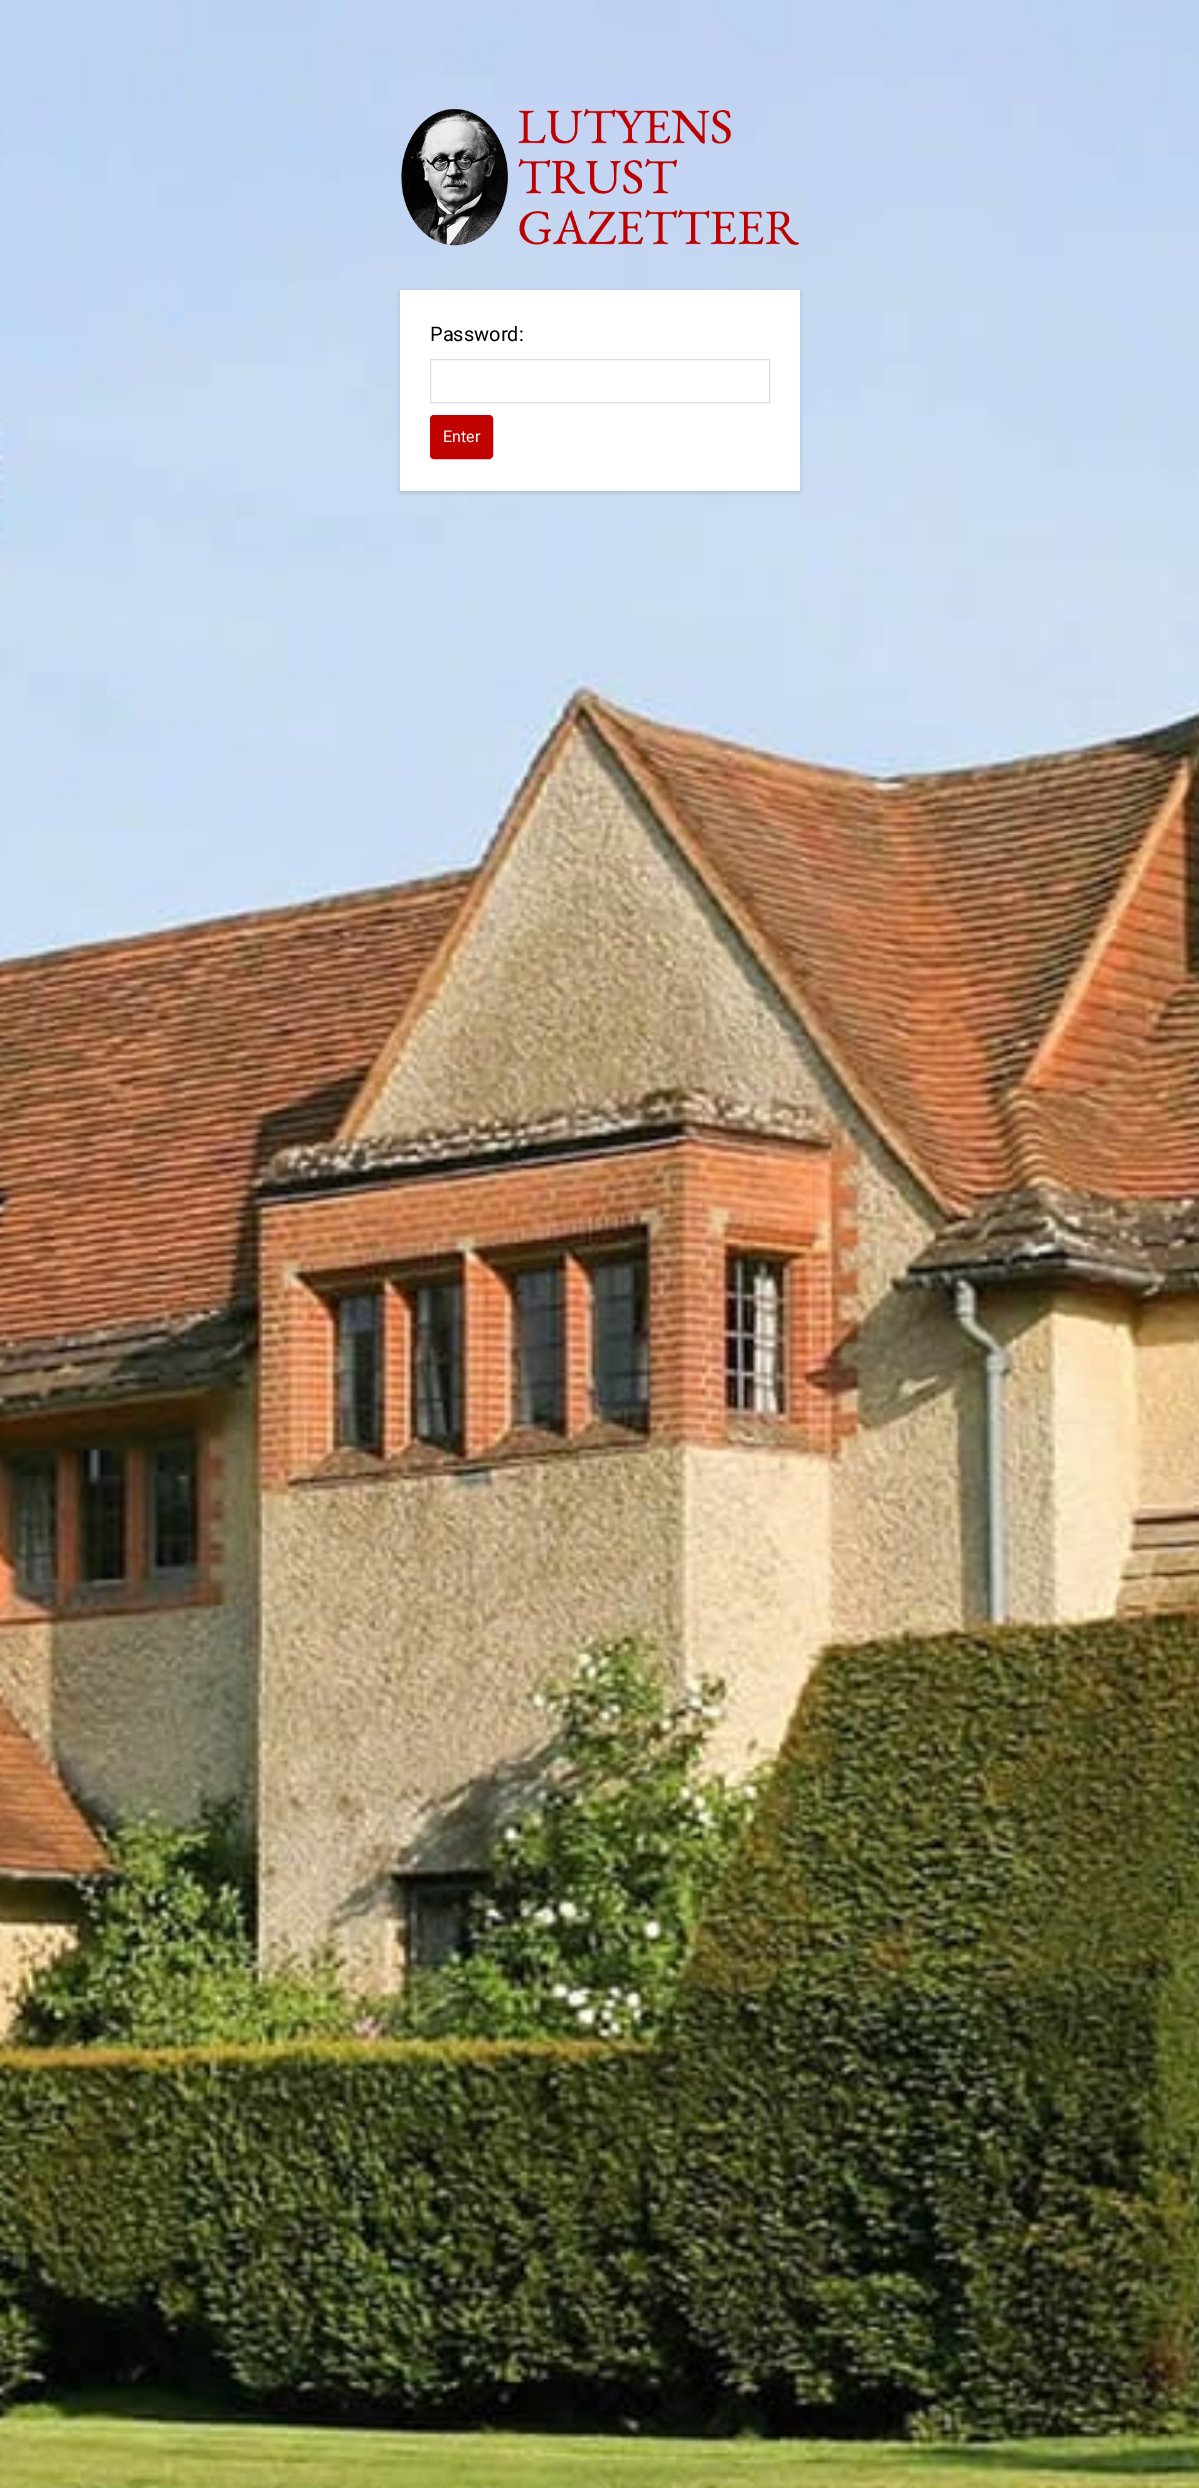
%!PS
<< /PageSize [1199 2488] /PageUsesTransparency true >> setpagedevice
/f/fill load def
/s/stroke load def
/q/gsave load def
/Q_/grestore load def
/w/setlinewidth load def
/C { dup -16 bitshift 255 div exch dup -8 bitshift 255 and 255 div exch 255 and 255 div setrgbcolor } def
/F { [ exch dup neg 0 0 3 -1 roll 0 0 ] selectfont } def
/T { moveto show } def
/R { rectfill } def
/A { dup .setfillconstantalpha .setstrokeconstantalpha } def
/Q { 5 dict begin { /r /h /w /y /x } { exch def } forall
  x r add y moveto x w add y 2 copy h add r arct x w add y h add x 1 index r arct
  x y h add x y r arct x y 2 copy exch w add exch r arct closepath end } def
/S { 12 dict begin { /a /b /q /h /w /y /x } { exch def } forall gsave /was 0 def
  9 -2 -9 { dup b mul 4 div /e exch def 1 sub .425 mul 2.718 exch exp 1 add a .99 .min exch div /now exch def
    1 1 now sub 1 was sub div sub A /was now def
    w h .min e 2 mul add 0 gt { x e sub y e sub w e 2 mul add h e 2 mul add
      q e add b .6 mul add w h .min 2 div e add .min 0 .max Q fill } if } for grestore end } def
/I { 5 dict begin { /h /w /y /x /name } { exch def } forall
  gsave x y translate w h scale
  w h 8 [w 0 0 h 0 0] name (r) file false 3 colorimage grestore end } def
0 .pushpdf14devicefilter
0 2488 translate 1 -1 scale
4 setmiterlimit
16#FFFFFF C
0 0 1199 2488 R
(1.rgb) 0 0 1199 2488 I
(2.rgb) 401 108 398 138 I
16#000000 C
400 291 400 202 0 2 .13 S
16#FFFFFF C
400 290 400 201 R
/Roboto-Regular 20 F
16#000000 C
(Password:) 430 341 T
16#DDDDDD C
430.5 359.5 339 43 rectstroke
16#C00201 C
431.5 416.5 60 41 2.5 Q q f Q_
3 w
s
/Roboto-Regular 16 F
16#FFFFFF C
(Enter) 443 442 T
.poppdf14devicefilter showpage
